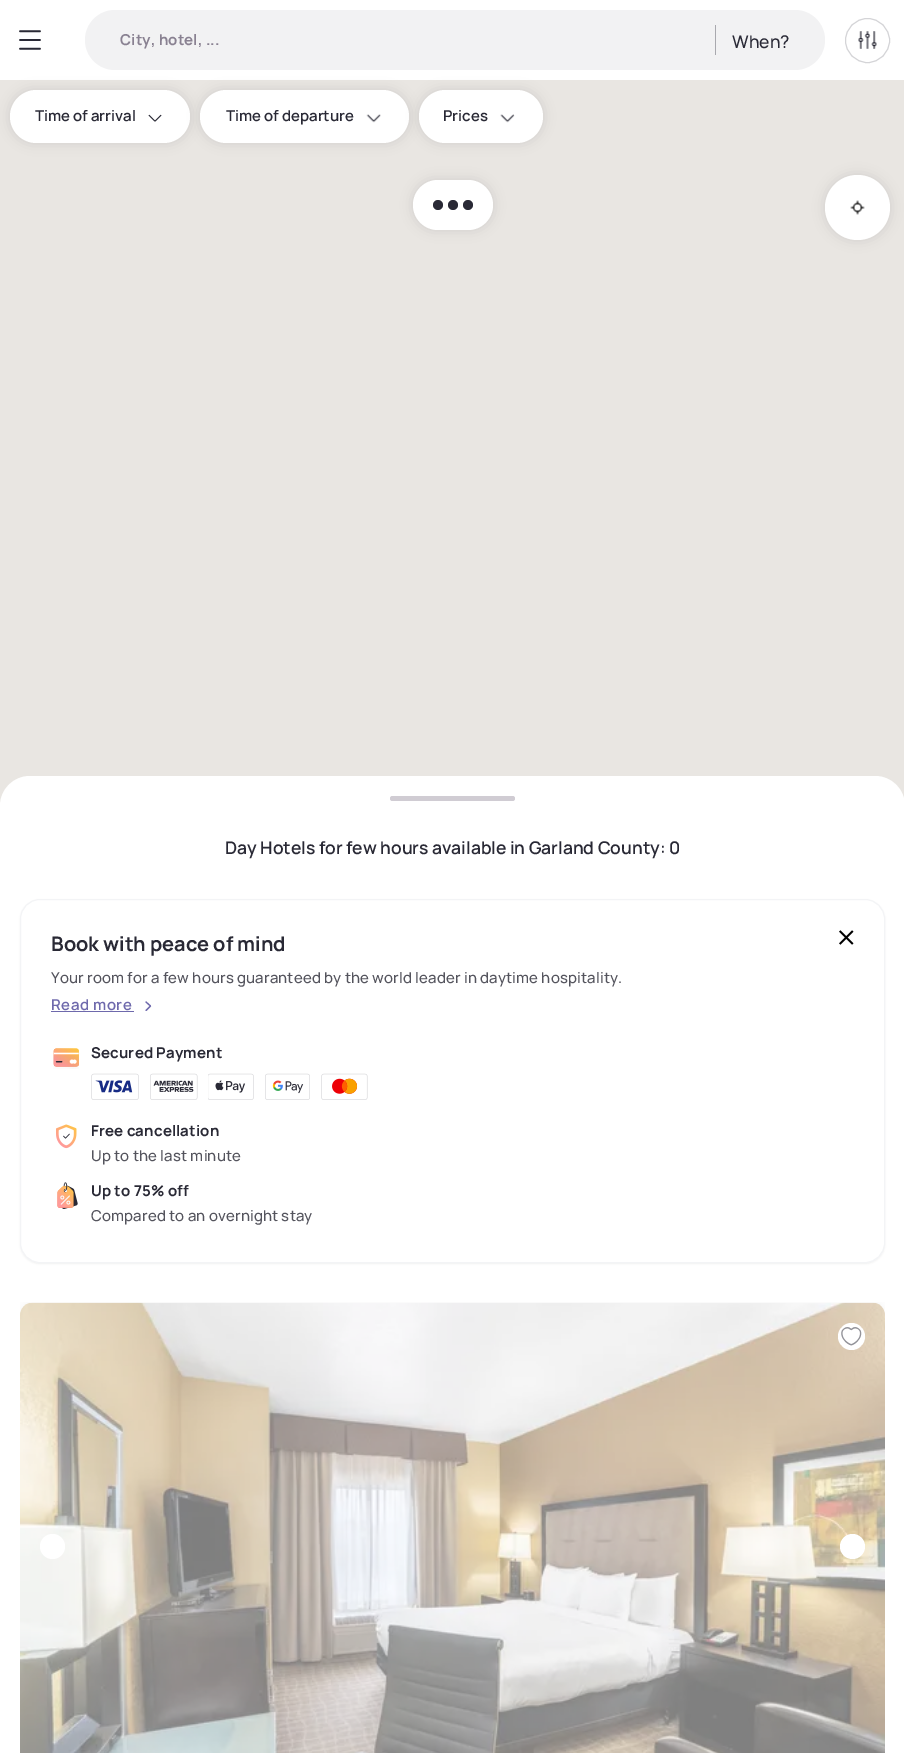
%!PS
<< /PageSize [904 1753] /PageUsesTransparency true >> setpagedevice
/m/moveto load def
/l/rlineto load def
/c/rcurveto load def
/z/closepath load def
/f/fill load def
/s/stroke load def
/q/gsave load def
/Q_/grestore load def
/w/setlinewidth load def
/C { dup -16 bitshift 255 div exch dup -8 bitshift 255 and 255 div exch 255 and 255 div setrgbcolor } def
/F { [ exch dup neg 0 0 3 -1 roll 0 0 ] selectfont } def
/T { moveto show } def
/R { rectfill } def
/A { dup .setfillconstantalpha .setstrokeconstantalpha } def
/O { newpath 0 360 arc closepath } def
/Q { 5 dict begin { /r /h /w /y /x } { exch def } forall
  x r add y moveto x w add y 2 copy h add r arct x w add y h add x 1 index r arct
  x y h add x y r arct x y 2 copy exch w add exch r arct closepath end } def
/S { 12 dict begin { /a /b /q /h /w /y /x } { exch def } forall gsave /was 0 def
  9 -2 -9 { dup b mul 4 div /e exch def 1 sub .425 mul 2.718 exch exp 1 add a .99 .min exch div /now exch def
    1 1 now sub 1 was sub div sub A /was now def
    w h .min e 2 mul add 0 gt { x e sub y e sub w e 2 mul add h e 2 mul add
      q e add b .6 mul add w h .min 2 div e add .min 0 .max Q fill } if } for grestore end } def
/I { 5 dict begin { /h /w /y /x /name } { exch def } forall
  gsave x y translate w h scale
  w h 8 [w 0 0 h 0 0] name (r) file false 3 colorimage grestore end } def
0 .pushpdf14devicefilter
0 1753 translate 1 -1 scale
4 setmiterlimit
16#FFFFFF C
0 0 904 1753 R
(1.rgb) 19 30 22 20 I
16#F2F2F3 C
85 10 740 60 30 Q f
/Manrope-Bold 15 F
16#898191 C
120 45 m .15 0 (City, hotel, ...) ashow
16#A9A9AE C
715 25 1 30 R
/Manrope-Medium 17.5 F
16#292935 C
(When?) 732 48 T
16#D4D4D7 C
867.5 40.5 22 O s
(2.rgb) 858 31 19 18 I
16#E9E6E2 C
0 80 904 726 R
16#000000 C
10 90 180 53 26.5 6 .1 S
16#FFFFFF C
10 90 180 53 26.5 Q f
/Manrope-SemiBold 15 F
16#292935 C
(Time of arrival) 35 121 T
(3.rgb) 148 114 14 8 I
16#000000 C
200 90 209 53 26.5 6 .1 S
16#FFFFFF C
200 90 209 53 26.5 Q f
16#292935 C
(Time of departure) 226 121 T
(4.rgb) 366 114 15 9 I
16#000000 C
419 90 124 53 26.5 6 .1 S
16#FFFFFF C
419 90 124 53 26.5 Q f
16#292935 C
(Prices) 443 121 T
(5.rgb) 500 114 15 9 I
16#FFFFFF C
30 776 m 845 0 l 16.5 0 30 13.5 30 30 c 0 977 l -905 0 l 0 -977 l 0 -16.5 13.5 -30 30 -30 c z f
16#D0CCD3 C
390 796 125 5 2.5 Q f
/Manrope-SemiBold 17.5 F
16#292935 C
(Day Hotels for few hours available in Garland County: 0) 225 854 T
16#000000 C
20 900 865 364 20 1 .05 S
16#FFFFFF C
20.5 899.5 864 363 19.5 Q q f Q_
16#F3F4F6 C
s
/Manrope-Bold 20 F
16#292935 C
(Book with peace of mind) 51 951 T
/Manrope-Medium 15 F
16#54545D C
51 983 m .15 0 (Your room for a few hours guaranteed by the world leader in daytime hospitality.) ashow
/Manrope-SemiBold 15 F
16#6E69AC C
51 1010 m .5 0 (Read more) ashow
51 1011 83 1 R
1.2 w
1 setlinecap
1 setlinejoin
146 1002 m 4.5 4 l -4.5 4.5 l s
(6.rgb) 839 930 15 15 I
(7.rgb) 53 1048 26 21 I
/Manrope-Bold 15 F
16#292935 C
91 1058 m .15 0 (Secured Payment) ashow
(8.rgb) 91 1073 48 27 I
(9.rgb) 150 1073 48 27 I
(10.rgb) 208 1073 46 27 I
(11.rgb) 265 1073 45 27 I
(12.rgb) 321 1073 47 27 I
(13.rgb) 56 1124 21 25 I
91 1136 m .15 0 (Free cancellation) ashow
/Manrope-Medium 15 F
16#54545D C
91 1161 m .15 0 (Up to the last minute) ashow
(14.rgb) 57 1182 21 27 I
/Manrope-Bold 15 F
16#292935 C
91 1196 m .15 0 (Up to 75% off) ashow
/Manrope-Medium 15 F
16#54545D C
91 1221 m .15 0 (Compared to an overnight stay) ashow
(15.rgb) 20 1302 865 451 I
16#FFFFFF C
52.5 1546.5 12.5 O f
852.5 1546.5 12.5 O f
851.5 1336.5 13.5 O f
(16.rgb) 841 1327 21 19 I
16#000000 C
413 180 80 50 25 6 .1 S
16#FFFFFF C
413 180 80 50 25 Q f
16#292935 C
438 205 5 O f
453 205 5 O f
468 205 5 O f
16#000000 C
825 175 65 65 32.5 6 .1 S
16#FFFFFF C
857.5 207.5 32.5 O f
(17.rgb) 850 200 15 15 I
.poppdf14devicefilter showpage
